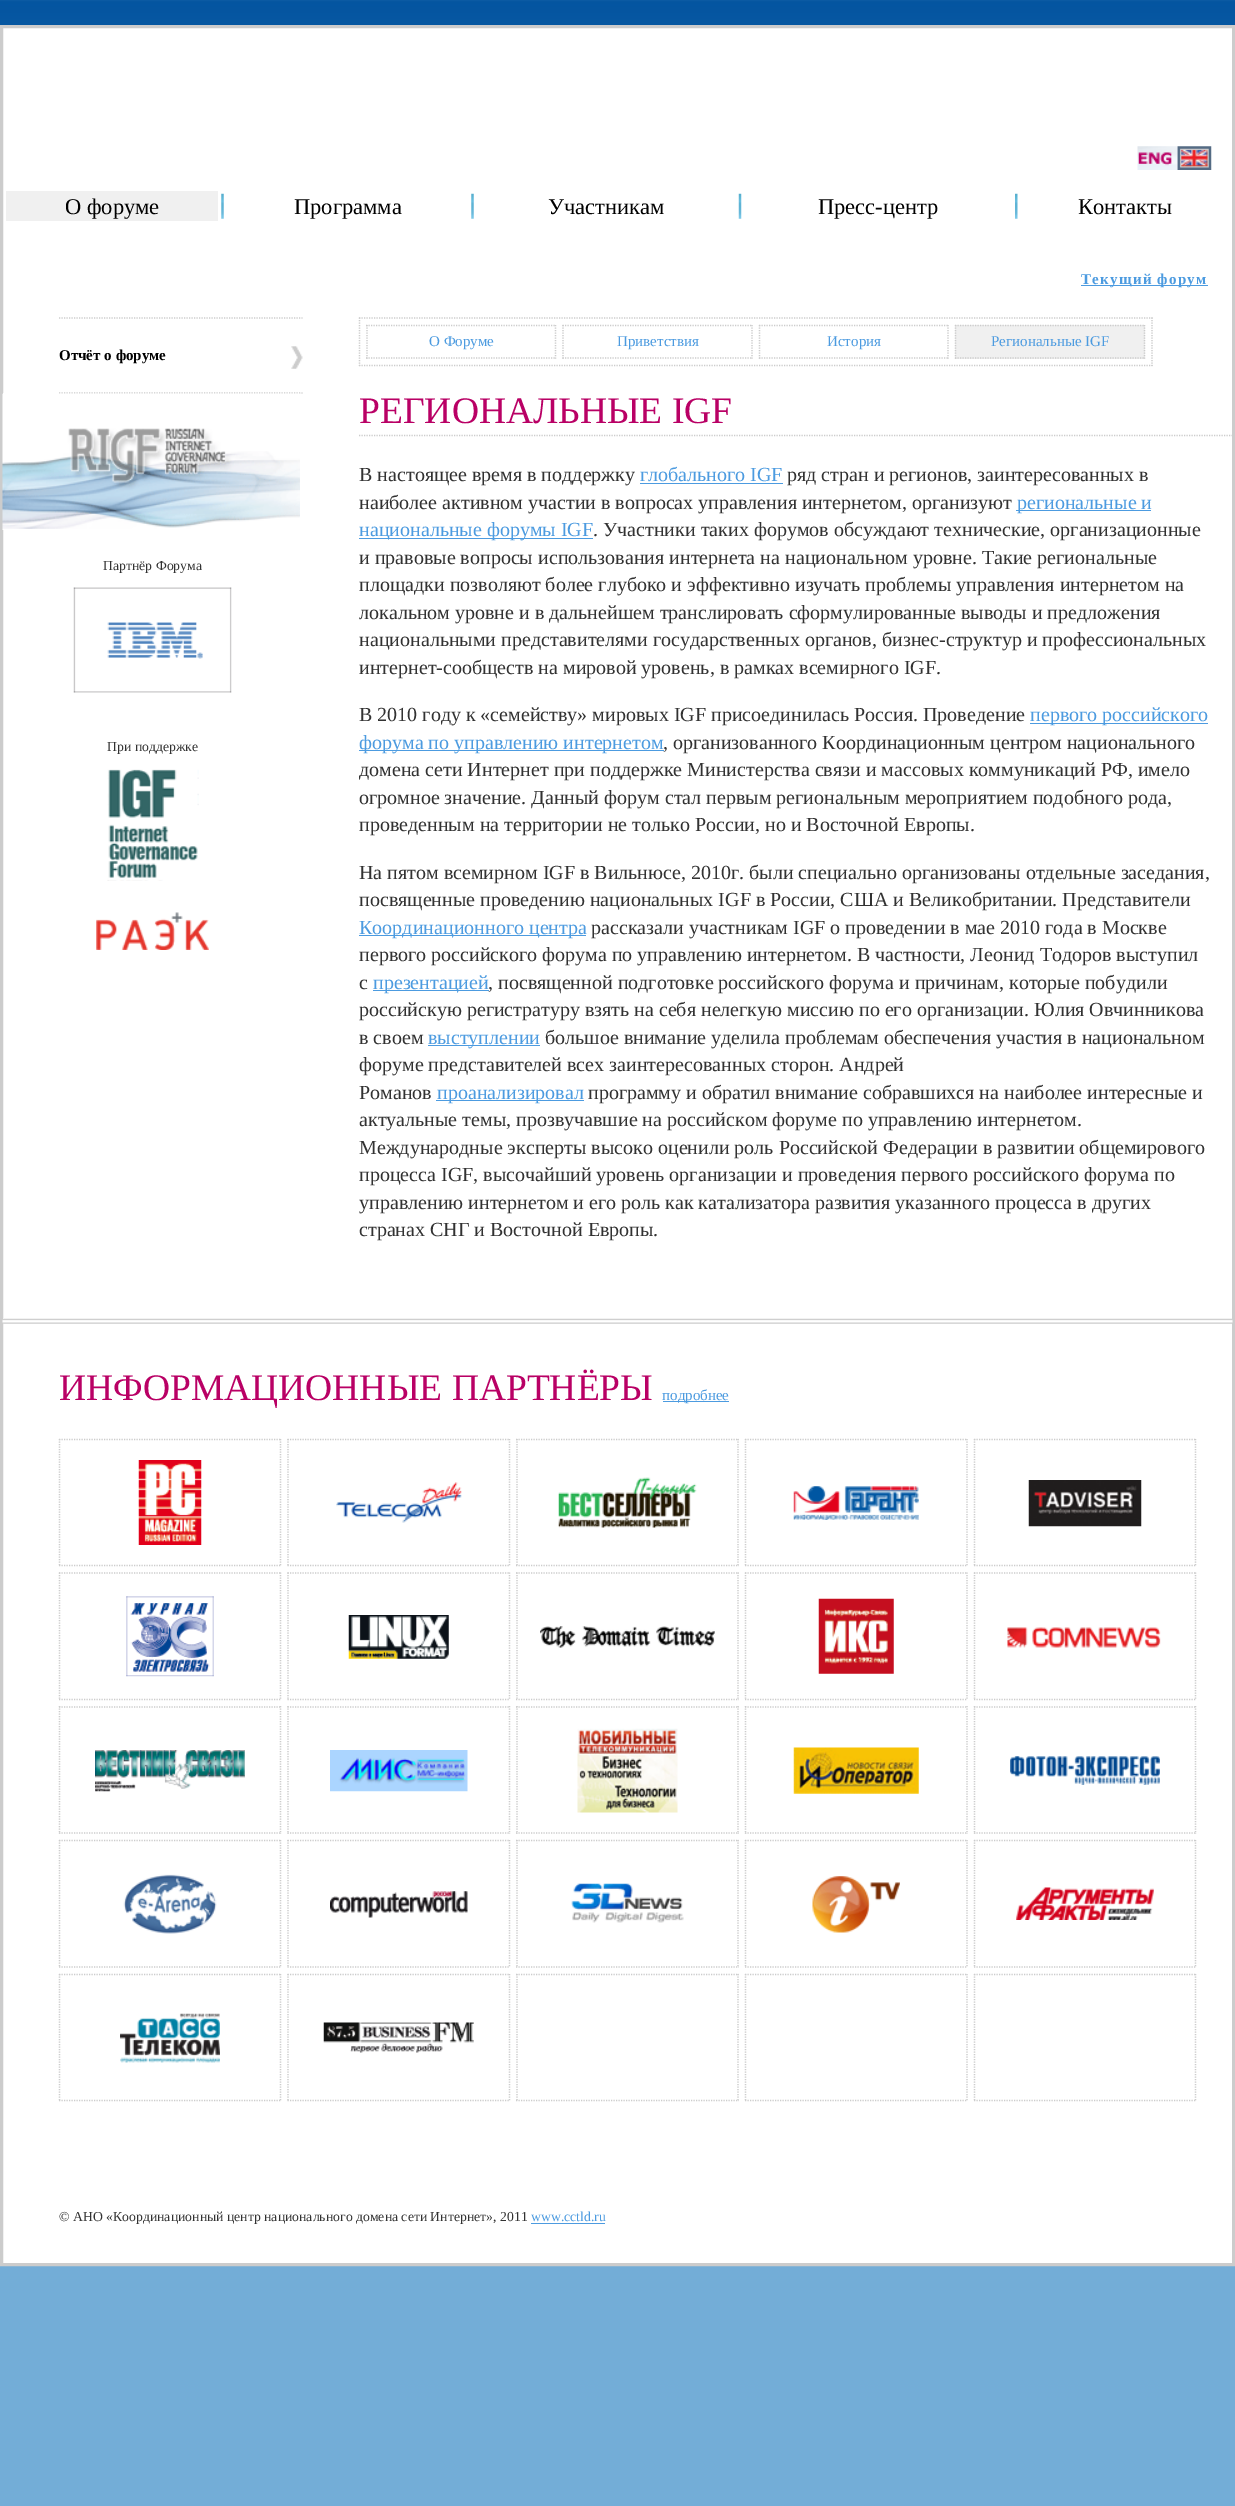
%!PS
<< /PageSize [1235 2506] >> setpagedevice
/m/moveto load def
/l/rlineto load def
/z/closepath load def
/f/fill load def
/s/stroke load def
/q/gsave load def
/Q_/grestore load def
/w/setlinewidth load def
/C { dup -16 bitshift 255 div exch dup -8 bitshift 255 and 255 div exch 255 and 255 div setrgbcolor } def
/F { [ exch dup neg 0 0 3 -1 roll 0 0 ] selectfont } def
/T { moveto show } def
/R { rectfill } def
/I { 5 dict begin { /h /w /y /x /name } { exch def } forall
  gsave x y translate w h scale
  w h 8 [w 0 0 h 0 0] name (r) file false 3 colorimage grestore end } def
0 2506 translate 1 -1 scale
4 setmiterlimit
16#73ADD7 C
0 0 1235 2506 R
(1.rgb) 0 0 1235 25 I
16#FFFFFF C
1.5 26.5 m 1232 0 l 0 2238 l -1232 0 l z q f Q_
16#CCCCCC C
3 w
s
(2.rgb) 1137 146 75 24 I
(3.rgb) 221 193 3 26 I
16#F0F0F0 C
6 191 212 30 R
/LiberationSerif-Regular 22.5 F
16#000000 C
(О форуме) 65 214 T
(3.rgb) 471 193 3 26 I
(Программа) 294 214 T
(4.rgb) 738 193 4 26 I
(Участникам) 548 214 T
(5.rgb) 1015 193 3 26 I
(Пресс-центр) 818 214 T
(Контакты) 1078 214 T
16#4C9BE0 C
1081 285 127 1 R
/LiberationSerif-Bold 15 F
1081 284 m 1.25 0 (Текущий форум) ashow
16#CCCCCC C
1.2 w
[1.25 1.25] 0 setdash
59 318 m 243.5 0 l s
(6.rgb) 291 346 12 23 I
59 393 m 243.5 0 l s
16#000000 C
(Отчёт о форуме) 59 360 T
(7.rgb) 2 393 298 137 I
/LiberationSerif-Regular 13.75 F
16#323232 C
(Партнёр Форума) 103 570 T
(8.rgb) 73 587 159 106 I
(При поддержке) 107 751 T
(9.rgb) 107 769 92 112 I
(10.rgb) 96 912 113 38 I
16#CCCCCC C
359 318 m 793.5 0 l s
1152 317.5 m 0 48.5 l s
359 365.5 m 793.5 0 l s
359.5 317.5 m 0 48.5 l s
366 325.5 m 190 0 l s
555.5 325 m 0 34 l s
366 358 m 190 0 l s
367 325 m 0 34 l s
/LiberationSerif-Regular 15 F
16#4C9BE0 C
(О Форуме) 429 346 T
16#CCCCCC C
562.5 325.5 m 190 0 l s
752 325 m 0 34 l s
562.5 358 m 190 0 l s
563 325 m 0 34 l s
16#4C9BE0 C
(Приветствия) 617 346 T
16#CCCCCC C
759 325.5 m 190 0 l s
948 325 m 0 34 l s
759 358 m 190 0 l s
759.5 325 m 0 34 l s
16#4C9BE0 C
(История) 827 346 T
16#F0F0F0 C
955 325 190 34 R
16#CCCCCC C
955 325.5 m 190 0 l s
1144.5 325 m 0 34 l s
955 358 m 190 0 l s
955.5 325 m 0 34 l s
16#4C9BE0 C
(Региональные IGF) 991 346 T
16#CCCCCC C
359 435.5 m 873.5 0 l s
/LiberationSerif-Regular 37.5 F
16#B90065 C
(РЕГИОНАЛЬНЫЕ IGF) 359 423 T
/LiberationSerif-Regular 20 F
16#323232 C
(В настоящее время в поддержку) 359 481 T
16#4C9BE0 C
(глобального IGF) 640 481 T
640 483 143 1 R
16#323232 C
(ряд стран и регионов, заинтересованных в) 787 481 T
(наиболее активном участии в вопросах управления интернетом, организуют) 359 509 T
16#4C9BE0 C
1016 510 135 1 R
(региональные и) 1017 509 T
359 538 234 1 R
(национальные форумы IGF) 359 536 T
16#323232 C
(. Участники таких форумов обсуждают технические, организационные) 593 536 T
(и правовые вопросы использования интернета на национальном уровне. Такие региональные) 359 564 T
(площадки позволяют более глубоко и эффективно изучать проблемы управления интернетом на) 359 591 T
(локальном уровне и в дальнейшем транслировать сформулированные выводы и предложения) 359 619 T
(национальными представителями государственных органов, бизнес-структур и профессиональных) 359 646 T
(интернет-сообществ на мировой уровень, в рамках всемирного IGF.) 359 674 T
(В 2010 году к «семейству» мировых IGF присоединилась Россия. Проведение) 359 721 T
16#4C9BE0 C
1030 723 178 1 R
(первого российского) 1030 721 T
359 750 305 1 R
(форума по управлению интернетом) 359 749 T
16#323232 C
(, организованного Координационным центром национального) 663 749 T
(домена сети Интернет при поддержке Министерства связи и массовых коммуникаций РФ, имело) 359 776 T
(огромное значение. Данный форум стал первым региональным мероприятием подобного рода,) 359 804 T
(проведенным на территории не только России, но и Восточной Европы.) 359 831 T
(На пятом всемирном IGF в Вильнюсе, 2010г. были специально организованы отдельные заседания,) 359 879 T
(посвященные проведению национальных IGF в России, США и Великобритании. Представители) 359 906 T
16#4C9BE0 C
359 935 227 1 R
(Координационного центра) 359 934 T
16#323232 C
(рассказали участникам IGF о проведении в мае 2010 года в Москве) 591 934 T
(первого российского форума по управлению интернетом. В частности, Леонид Тодоров выступил) 359 961 T
(с) 359 989 T
16#4C9BE0 C
373 990 116 1 R
(презентацией) 373 989 T
16#323232 C
(, посвященной подготовке российского форума и причинам, которые побудили) 488 989 T
(российскую регистратуру взять на себя нелегкую миссию по его организации. Юлия Овчинникова) 359 1016 T
(в своем) 359 1044 T
16#4C9BE0 C
428 1045 112 1 R
(выступлении) 428 1044 T
16#323232 C
(большое внимание уделила проблемам обеспечения участия в национальном) 545 1044 T
(форуме представителей всех заинтересованных сторон. Андрей) 359 1071 T
(Романов) 359 1099 T
16#4C9BE0 C
436 1100 148 1 R
(проанализировал) 437 1099 T
16#323232 C
(программу и обратил внимание собравшихся на наиболее интересные и) 588 1099 T
(актуальные темы, прозвучавшие на российском форуме по управлению интернетом.) 359 1126 T
(Международные эксперты высоко оценили роль Российской Федерации в развитии общемирового) 359 1154 T
(процесса IGF, высочайший уровень организации и проведения первого российского форума по) 359 1181 T
(управлению интернетом и его роль как катализатора развития указанного процесса в других) 359 1209 T
(странах СНГ и Восточной Европы.) 359 1236 T
(11.rgb) 2 1318 1231 6 I
/LiberationSerif-Regular 37.5 F
16#B90065 C
(ИНФОРМАЦИОННЫЕ ПАРТНЁРЫ) 59 1400 T
16#4C9BE0 C
663 1401 66 1 R
/LiberationSerif-Regular 15 F
(подробнее) 662 1400 T
16#CCCCCC C
59 1439.5 m 222 0 l s
280.5 1439 m 0 127 l s
59 1565.5 m 222 0 l s
59.5 1439 m 0 127 l s
(12.rgb) 138 1460 64 85 I
287.5 1439.5 m 222.5 0 l s
509.5 1439 m 0 127 l s
287.5 1565.5 m 222.5 0 l s
288 1439 m 0 127 l s
(13.rgb) 336 1482 126 41 I
516 1439.5 m 223 0 l s
738 1439 m 0 127 l s
516 1565.5 m 223 0 l s
517 1439 m 0 127 l s
(14.rgb) 558 1477 139 51 I
745 1439.5 m 222.5 0 l s
967 1439 m 0 127 l s
745 1565.5 m 222.5 0 l s
745.5 1439 m 0 127 l s
(15.rgb) 793 1486 126 34 I
974 1439.5 m 222 0 l s
1195.5 1439 m 0 127 l s
974 1565.5 m 222 0 l s
974.5 1439 m 0 127 l s
(16.rgb) 1028 1480 114 47 I
59 1573 m 222 0 l s
280.5 1572.5 m 0 127.5 l s
59 1699.5 m 222 0 l s
59.5 1572.5 m 0 127.5 l s
(17.rgb) 126 1596 88 81 I
287.5 1573 m 222.5 0 l s
509.5 1572.5 m 0 127.5 l s
287.5 1699.5 m 222.5 0 l s
288 1572.5 m 0 127.5 l s
(18.rgb) 348 1615 101 44 I
516 1573 m 223 0 l s
738 1572.5 m 0 127.5 l s
516 1699.5 m 223 0 l s
517 1572.5 m 0 127.5 l s
(19.rgb) 540 1626 175 22 I
745 1573 m 222.5 0 l s
967 1572.5 m 0 127.5 l s
745 1699.5 m 222.5 0 l s
745.5 1572.5 m 0 127.5 l s
(20.rgb) 818 1598 76 76 I
974 1573 m 222 0 l s
1195.5 1572.5 m 0 127.5 l s
974 1699.5 m 222 0 l s
974.5 1572.5 m 0 127.5 l s
(21.rgb) 1007 1627 154 21 I
59 1707 m 222 0 l s
280.5 1706 m 0 128 l s
59 1833 m 222 0 l s
59.5 1706 m 0 128 l s
(22.rgb) 95 1750 150 42 I
287.5 1707 m 222.5 0 l s
509.5 1706 m 0 128 l s
287.5 1833 m 222.5 0 l s
288 1706 m 0 128 l s
(23.rgb) 330 1750 138 42 I
516 1707 m 223 0 l s
738 1706 m 0 128 l s
516 1833 m 223 0 l s
517 1706 m 0 128 l s
(24.rgb) 577 1728 101 85 I
745 1707 m 222.5 0 l s
967 1706 m 0 128 l s
745 1833 m 222.5 0 l s
745.5 1706 m 0 128 l s
(25.rgb) 793 1747 126 47 I
974 1707 m 222 0 l s
1195.5 1706 m 0 128 l s
974 1833 m 222 0 l s
974.5 1706 m 0 128 l s
(26.rgb) 1010 1756 150 29 I
59 1840.5 m 222 0 l s
280.5 1840 m 0 127.5 l s
59 1967 m 222 0 l s
59.5 1840 m 0 127.5 l s
(27.rgb) 123 1874 94 60 I
287.5 1840.5 m 222.5 0 l s
509.5 1840 m 0 127.5 l s
287.5 1967 m 222.5 0 l s
288 1840 m 0 127.5 l s
(28.rgb) 330 1891 138 27 I
516 1840.5 m 223 0 l s
738 1840 m 0 127.5 l s
516 1967 m 223 0 l s
517 1840 m 0 127.5 l s
(29.rgb) 571 1883 113 40 I
745 1840.5 m 222.5 0 l s
967 1840 m 0 127.5 l s
745 1967 m 222.5 0 l s
745.5 1840 m 0 127.5 l s
(30.rgb) 812 1876 88 57 I
974 1840.5 m 222 0 l s
1195.5 1840 m 0 127.5 l s
974 1967 m 222 0 l s
974.5 1840 m 0 127.5 l s
(31.rgb) 1016 1887 138 33 I
59 1974.5 m 222 0 l s
280.5 1974 m 0 127 l s
59 2100.5 m 222 0 l s
59.5 1974 m 0 127 l s
(32.rgb) 120 2013 100 50 I
287.5 1974.5 m 222.5 0 l s
509.5 1974 m 0 127 l s
287.5 2100.5 m 222.5 0 l s
288 1974 m 0 127 l s
(33.rgb) 323 2022 151 31 I
516 1974.5 m 223 0 l s
738 1974 m 0 127 l s
516 2100.5 m 223 0 l s
517 1974 m 0 127 l s
745 1974.5 m 222.5 0 l s
967 1974 m 0 127 l s
745 2100.5 m 222.5 0 l s
745.5 1974 m 0 127 l s
974 1974.5 m 222 0 l s
1195.5 1974 m 0 127 l s
974 2100.5 m 222 0 l s
974.5 1974 m 0 127 l s
/LiberationSerif-Regular 13.75 F
16#323232 C
(© АНО «Координационный центр национального домена сети Интернет», 2011) 59 2221 T
16#4C9BE0 C
(www.cctld.ru) 531 2221 T
531 2223 74 1 R
showpage
